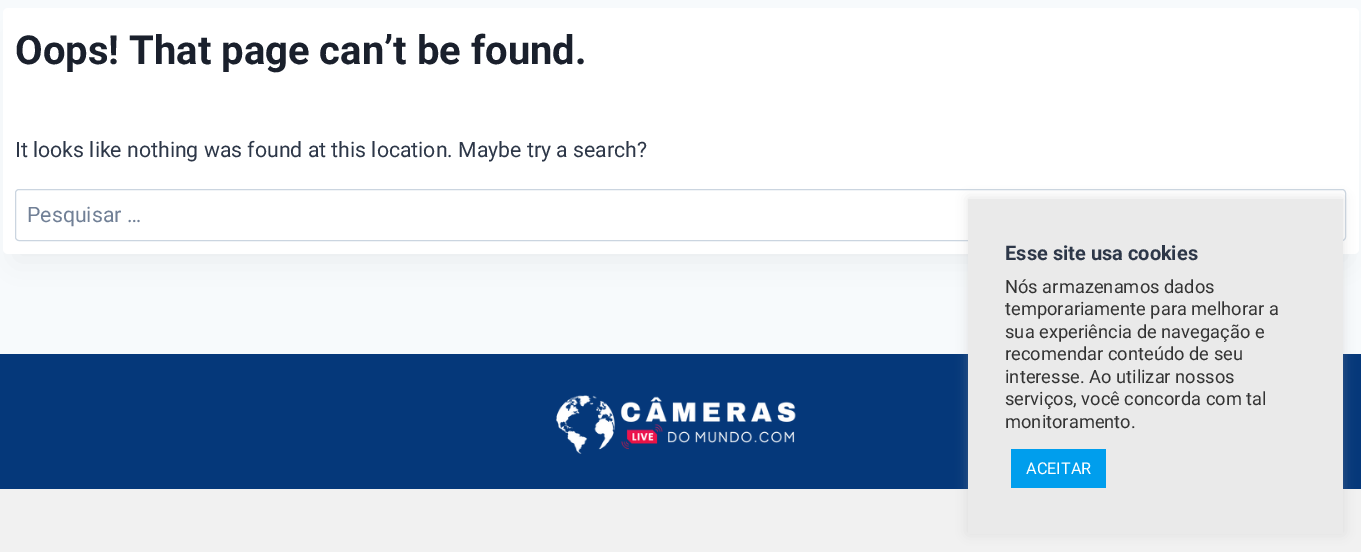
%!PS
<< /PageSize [1361 552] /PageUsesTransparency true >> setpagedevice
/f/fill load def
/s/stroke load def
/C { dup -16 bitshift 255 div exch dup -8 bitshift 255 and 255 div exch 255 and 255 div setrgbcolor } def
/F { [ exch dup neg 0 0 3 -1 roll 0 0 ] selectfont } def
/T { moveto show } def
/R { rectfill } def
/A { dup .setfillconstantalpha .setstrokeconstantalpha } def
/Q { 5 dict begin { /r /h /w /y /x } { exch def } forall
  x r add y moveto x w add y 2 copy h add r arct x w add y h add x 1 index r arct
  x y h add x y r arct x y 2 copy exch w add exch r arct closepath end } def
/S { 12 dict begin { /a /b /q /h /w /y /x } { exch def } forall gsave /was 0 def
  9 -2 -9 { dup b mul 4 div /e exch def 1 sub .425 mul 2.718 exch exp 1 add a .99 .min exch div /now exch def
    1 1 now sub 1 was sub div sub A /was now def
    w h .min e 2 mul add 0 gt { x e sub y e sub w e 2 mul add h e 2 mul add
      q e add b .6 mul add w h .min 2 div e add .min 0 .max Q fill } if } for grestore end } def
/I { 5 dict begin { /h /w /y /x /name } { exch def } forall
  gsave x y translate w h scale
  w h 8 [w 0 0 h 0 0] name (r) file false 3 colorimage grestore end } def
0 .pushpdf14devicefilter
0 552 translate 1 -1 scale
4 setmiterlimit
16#F7FAFC C
0 0 1361 552 R
16#000000 C
15 39 1331 221 0 15.5 .05 S
16#FFFFFF C
3 8 1356 246 5 Q f
/Roboto-Bold 40 F
16#1A202C C
(Oops! That page can’t be found.) 15 64 T
/Roboto-Regular 21.25 F
16#2D3748 C
(It looks like nothing was found at this location. Maybe try a search?) 15 157 T
16#CBD5E0 C
15.5 189.5 1330 51 3.5 Q s
16#718096 C
(Pesquisar …) 27 222 T
16#05387A C
0 354 1361 135 R
(1.rgb) 556 395 240 59 I
16#F1F1F1 C
0 489 1361 63 R
16#ACABAB C
968 198 375 335 0 6 .3 S
16#EAEAEA C
968 199 375 335 R
/Roboto-Bold 20 F
16#2D3748 C
(Esse site usa cookies) 1005 260 T
/Roboto-Regular 18.3 F
16#333333 C
(Nós armazenamos dados) 1005 293 T
(temporariamente para melhorar a) 1005 315 T
(sua experiência de navegação e) 1005 338 T
(recomendar conteúdo de seu) 1005 360 T
(interesse. Ao utilizar nossos) 1005 383 T
(serviços, você concorda com tal) 1005 405 T
(monitoramento.) 1005 428 T
16#009EED C
1011 449 95 39 R
/Roboto-Regular 16.25 F
16#FFFFFF C
(ACEITAR) 1026 474 T
.poppdf14devicefilter showpage
